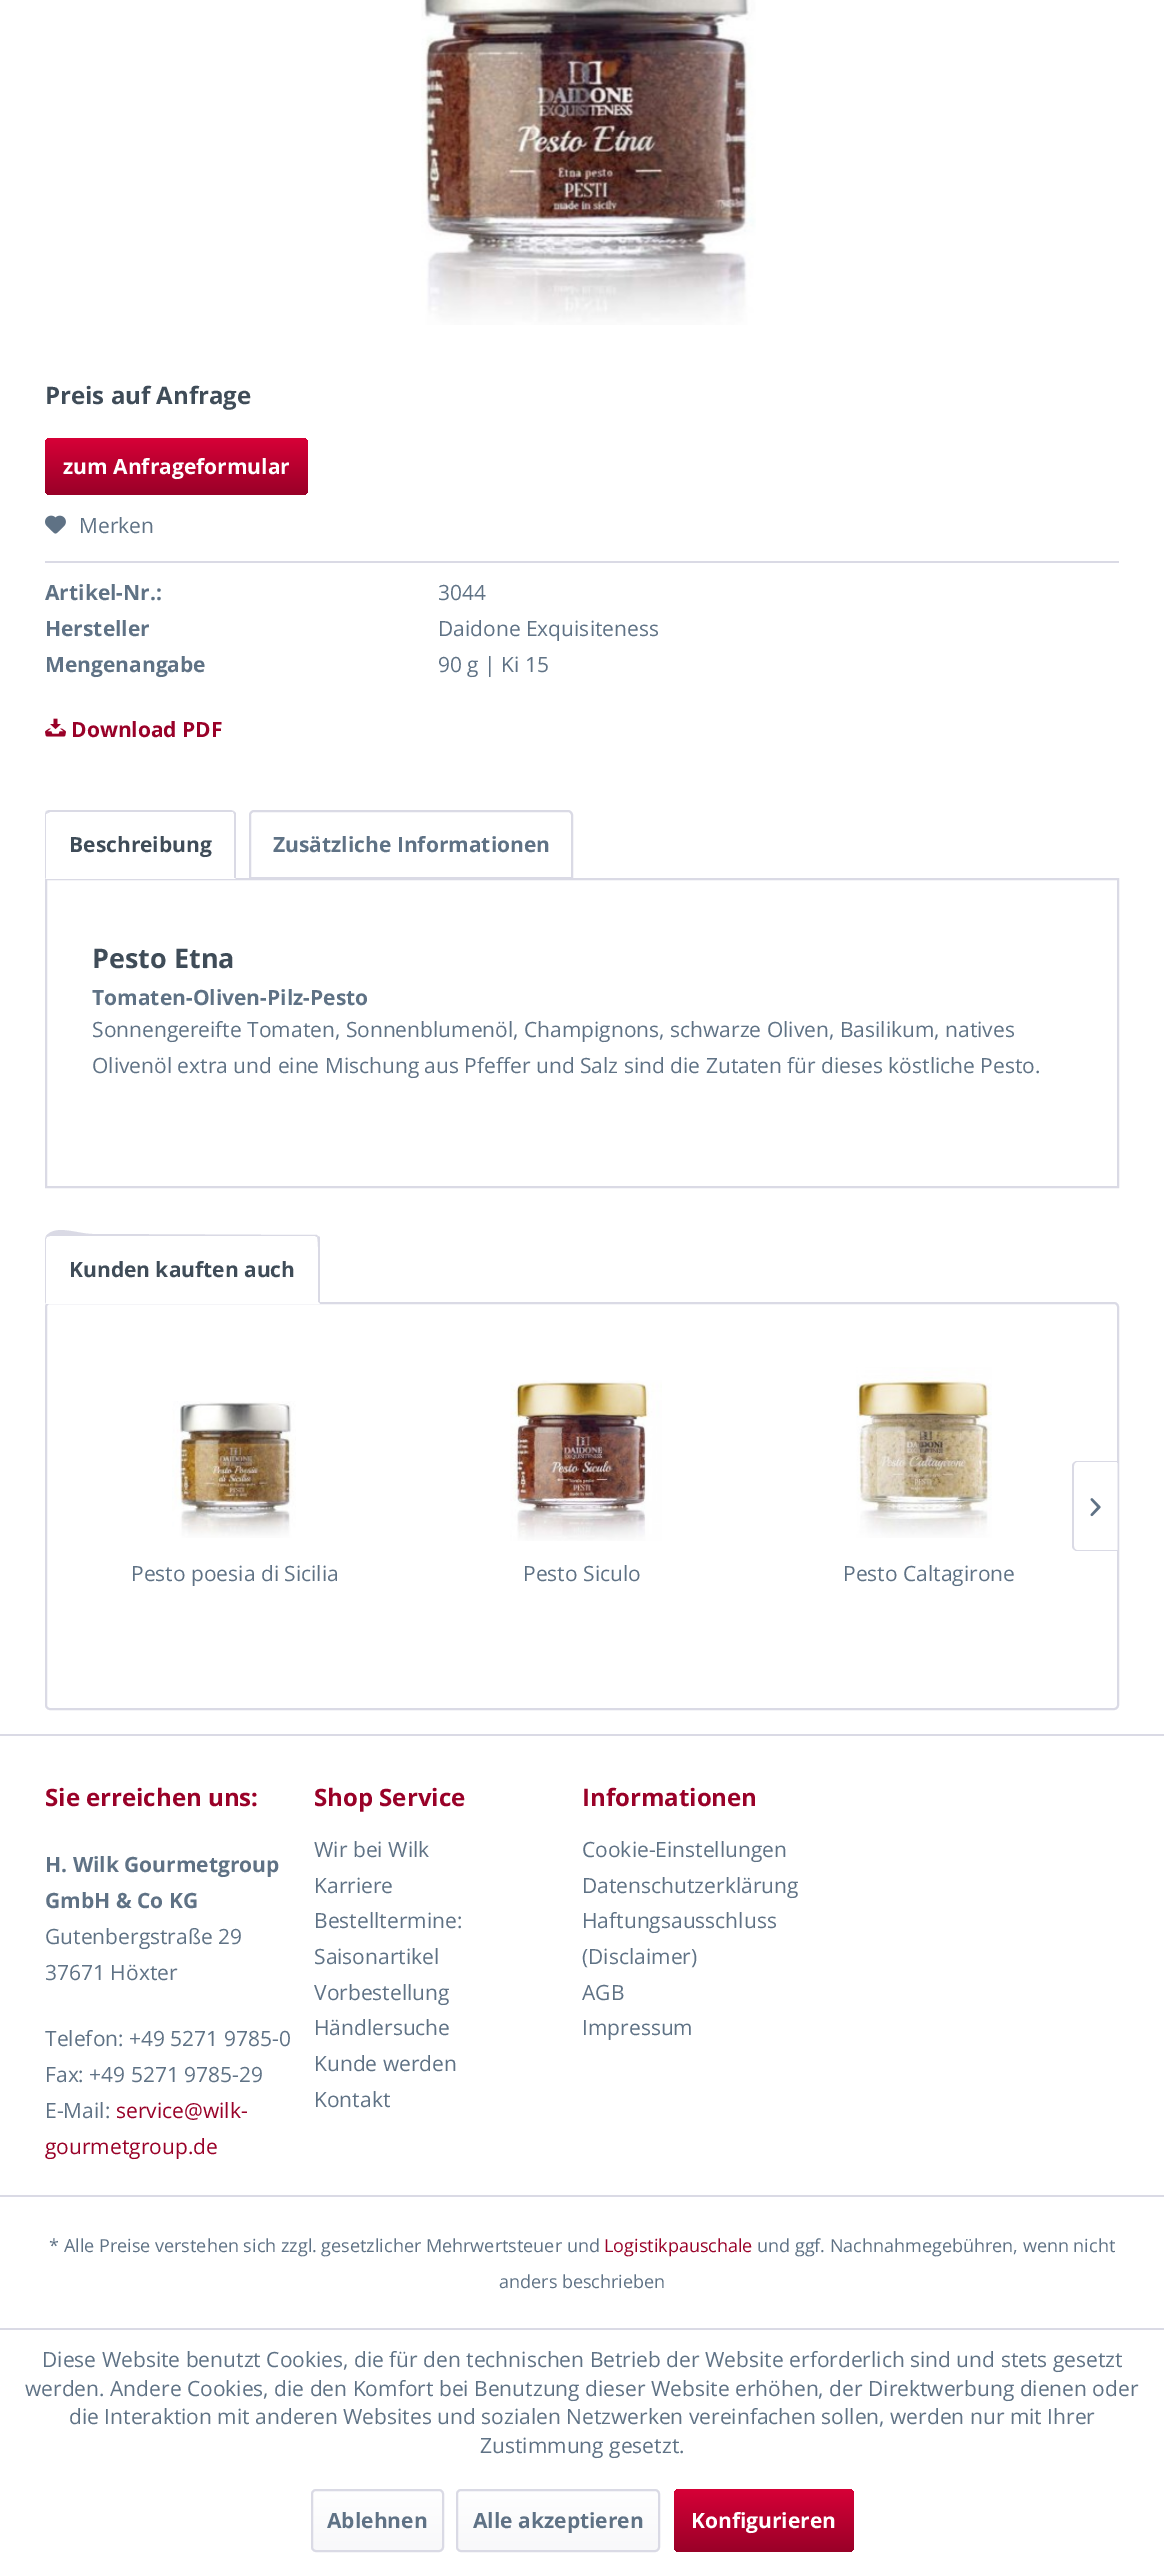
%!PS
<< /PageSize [1164 2566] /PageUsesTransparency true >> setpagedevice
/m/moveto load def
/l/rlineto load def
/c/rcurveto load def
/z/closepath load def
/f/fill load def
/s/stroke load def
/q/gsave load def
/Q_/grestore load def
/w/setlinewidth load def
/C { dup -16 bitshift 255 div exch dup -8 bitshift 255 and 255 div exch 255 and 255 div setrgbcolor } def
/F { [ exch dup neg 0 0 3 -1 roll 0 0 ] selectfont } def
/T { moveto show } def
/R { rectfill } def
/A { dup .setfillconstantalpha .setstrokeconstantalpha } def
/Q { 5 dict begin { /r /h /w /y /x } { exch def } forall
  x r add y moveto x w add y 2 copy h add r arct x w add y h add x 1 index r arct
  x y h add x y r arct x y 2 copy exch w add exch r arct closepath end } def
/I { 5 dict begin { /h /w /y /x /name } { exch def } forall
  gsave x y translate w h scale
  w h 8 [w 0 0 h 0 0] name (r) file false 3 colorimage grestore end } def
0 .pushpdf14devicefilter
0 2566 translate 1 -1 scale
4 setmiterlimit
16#FFFFFF C
0 0 1164 2566 R
(1.rgb) 421 0 335 325 I
/OpenSans-Bold 24 F
16#3F4C58 C
(Preis auf Anfrage) 45 404 T
q 45 438 263 57 5 Q clip newpath
<< /ShadingType 2 /ColorSpace /DeviceRGB /Coords [176 438 176 495] /Extend [true true] /Function << /FunctionType 2 /Domain [0 1] /C0 [.843 0 .216] /C1 [.6 .004 .157] /N 1 >> >> shfill Q_
/OpenSans-Bold 21 F
16#FFFFFF C
(zum Anfrageformular) 63 474 T
16#DADAE5 C
45 561 1074 2 R
(2.rgb) 45 515 21 19 I
/OpenSans-Regular 21 F
16#5F7285 C
(Merken) 79 533 T
/OpenSans-Bold 21 F
(Artikel-Nr.:) 45 600 T
/OpenSans-Regular 21 F
(3044) 438 600 T
/OpenSans-Bold 21 F
(Hersteller) 45 636 T
/OpenSans-Regular 21 F
(Daidone Exquisiteness) 438 636 T
/OpenSans-Bold 21 F
(Mengenangabe) 45 672 T
/OpenSans-Regular 21 F
(90 g | Ki 15) 438 672 T
(3.rgb) 45 718 21 19 I
/OpenSans-Bold 21 F
16#990128 C
(Download PDF) 71 737 T
16#DADAE5 C
2 w
46 879 1072 308 rectstroke
16#FFFFFF C
50 810 m 181 0 l 3 0 5 2 5 5 c 0 64 l -191 0 l 0 -64 l 0 -3 2 -5 5 -5 c z f
16#DADAE5 C
50 810 m -2 0 -3 1 -4 1 c 2 2 l 2 -1 l 181 0 l 2 0 l 1 -1 l -3 -1 l z f
236 813 m 0 66 l -2 -1 l 0 -64 l -1 -2 l 1 -1 l z f
16#FFFFFF C
236 879 m -2 -1 l -188 0 l -1 1 l z f
16#DADAE5 C
45 879 m 1 -1 l 0 -64 l 2 -1 l -2 -2 l -1 3 l z f
16#3F4C58 C
(Beschreibung) 69 852 T
16#DADAE5 C
254 811 m 314 0 l 2 0 4 2 4 4 c 0 63 l -322 0 l 0 -63 l 0 -2 2 -4 4 -4 c z s
16#5F7285 C
(Zusätzliche Informationen) 273 852 T
/OpenSans-Bold 27 F
16#3F4C58 C
(Pesto Etna) 92 968 T
/OpenSans-Bold 21 F
16#5F7285 C
(Tomaten-Oliven-Pilz-Pesto) 92 1005 T
/OpenSans-Regular 21 F
(Sonnengereifte Tomaten, Sonnenblumenöl, Champignons, schwarze Oliven, Basilikum, natives) 92 1037 T
(Olivenöl extra und eine Mischung aus Pfeffer und Salz sind die Zutaten für dieses köstliche Pesto.) 92 1073 T
16#DADAE5 C
46 1303 1072 406 4 Q s
16#FFFFFF C
50 1235 m 265 0 l 3 0 5 2 5 5 c 0 64 l -275 0 l 0 -64 l 0 -3 2 -5 5 -5 c z f
16#DADAE5 C
50 1236 m -3 1 l -1 -1 l 10 -12 31 -2 47 -2 c 224 1 l 1 1 l -1 1 l -2 -1 l z f
318 1236 m 2 1 l 0 67 l -2 -2 l 0 -7 1 -64 -1 -65 c z f
16#FFFFFF C
320 1304 m -2 -2 l -272 0 l -1 2 l z f
16#DADAE5 C
45 1304 m 1 -2 l 0 -63 l 1 -2 l -1 -1 l -1 3 l z f
/OpenSans-Bold 21 F
16#3F4C58 C
(Kunden kauften auch) 69 1277 T
0.5 A
16#FFFFFF C
1077 1463 m 41 0 l 0 87 l -41 0 l -1.5 0 -3 -1.5 -3 -3 c 0 -81 l 0 -1.5 1.5 -3 3 -3 c z f
1 A
16#DADAE5 C
1077 1461 m 41 0 l 0 90 l -41 0 l -2 0 -5 -2 -5 -5 c 0 -80 l 0 -3 3 -5 5 -5 c z 1077 1462 m 41 0 l 0 88 l -41 0 l -2 0 -3 -2 -3 -4 c 0 -80 l 0 -2 1 -4 3 -4 c z eofill
(4.rgb) 1090 1498 11 19 I
(5.rgb) 172 1401 124 137 I
/OpenSans-Regular 21 F
16#5F7285 C
(Pesto poesia di Sicilia) 131 1581 T
(6.rgb) 510 1380 152 161 I
(Pesto Siculo) 523 1581 T
(7.rgb) 856 1367 136 171 I
(Pesto Caltagirone) 843 1581 T
16#DADAE5 C
0 1734 1164 2 R
0 2195 1164 2 R
/OpenSans-Bold 24 F
16#990128 C
(Sie erreichen uns:) 45 1806 T
/OpenSans-Bold 21 F
16#5F7285 C
(H. Wilk Gourmetgroup) 45 1872 T
(GmbH & Co KG) 45 1908 T
/OpenSans-Regular 21 F
(Gutenbergstraße 29) 45 1944 T
(37671 Höxter) 45 1980 T
(Telefon: +49 5271 9785-0) 45 2046 T
(Fax: +49 5271 9785-29) 45 2082 T
(E-Mail:) 45 2118 T
16#990128 C
(service@wilk-) 116 2118 T
(gourmetgroup.de) 45 2154 T
/OpenSans-Bold 24 F
(Shop Service) 314 1806 T
/OpenSans-Regular 21 F
16#5F7285 C
(Wir bei Wilk) 314 1857 T
(Karriere) 314 1893 T
(Bestelltermine:) 314 1928 T
(Saisonartikel) 314 1964 T
(Vorbestellung) 314 2000 T
(Händlersuche) 314 2035 T
(Kunde werden) 314 2071 T
(Kontakt) 314 2107 T
/OpenSans-Bold 24 F
16#990128 C
(Informationen) 582 1806 T
/OpenSans-Regular 21 F
16#5F7285 C
(Cookie-Einstellungen) 582 1857 T
(Datenschutzerklärung) 582 1893 T
(Haftungsausschluss) 582 1928 T
(\(Disclaimer\)) 582 1964 T
(AGB) 582 2000 T
(Impressum) 582 2035 T
/OpenSans-Regular 18 F
(* Alle Preise verstehen sich zzgl. gesetzlicher Mehrwertsteuer und) 49 2252 T
16#990128 C
(Logistikpauschale) 604 2252 T
16#5F7285 C
(und ggf. Nachnahmegebühren, wenn nicht) 757 2252 T
(anders beschrieben) 499 2288 T
16#DADAE5 C
0 2328 1164 2 R
/OpenSans-Regular 21 F
16#5F7285 C
(Diese Website benutzt Cookies, die für den technischen Betrieb der Website erforderlich sind und stets gesetzt) 42 2367 T
(werden. Andere Cookies, die den Komfort bei Benutzung dieser Website erhöhen, der Direktwerbung dienen oder) 25 2396 T
(die Interaktion mit anderen Websites und sozialen Netzwerken vereinfachen sollen, werden nur mit Ihrer) 69 2424 T
(Zustimmung gesetzt.) 480 2453 T
q 312 2490 131 60 3 Q clip newpath
<< /ShadingType 2 /ColorSpace /DeviceRGB /Coords [377 2490 377 2550] /Extend [true true] /Function << /FunctionType 2 /Domain [0 1] /C0 [1 1 1] /C1 [.973 .973 .98] /N 1 >> >> shfill Q_
16#DADAE5 C
312 2490 131 61 4 Q s
/OpenSans-Bold 21 F
16#5F7285 C
(Ablehnen) 327 2528 T
q 458 2490 201 60 3 Q clip newpath
<< /ShadingType 2 /ColorSpace /DeviceRGB /Coords [558 2490 558 2550] /Extend [true true] /Function << /FunctionType 2 /Domain [0 1] /C0 [1 1 1] /C1 [.973 .973 .98] /N 1 >> >> shfill Q_
16#DADAE5 C
457 2490 202 61 4 Q s
16#5F7285 C
(Alle akzeptieren) 473 2528 T
q 674 2489 180 63 5 Q clip newpath
<< /ShadingType 2 /ColorSpace /DeviceRGB /Coords [764 2489 764 2552] /Extend [true true] /Function << /FunctionType 2 /Domain [0 1] /C0 [.843 0 .216] /C1 [.6 .004 .157] /N 1 >> >> shfill Q_
16#FFFFFF C
(Konfigurieren) 691 2528 T
.poppdf14devicefilter showpage
